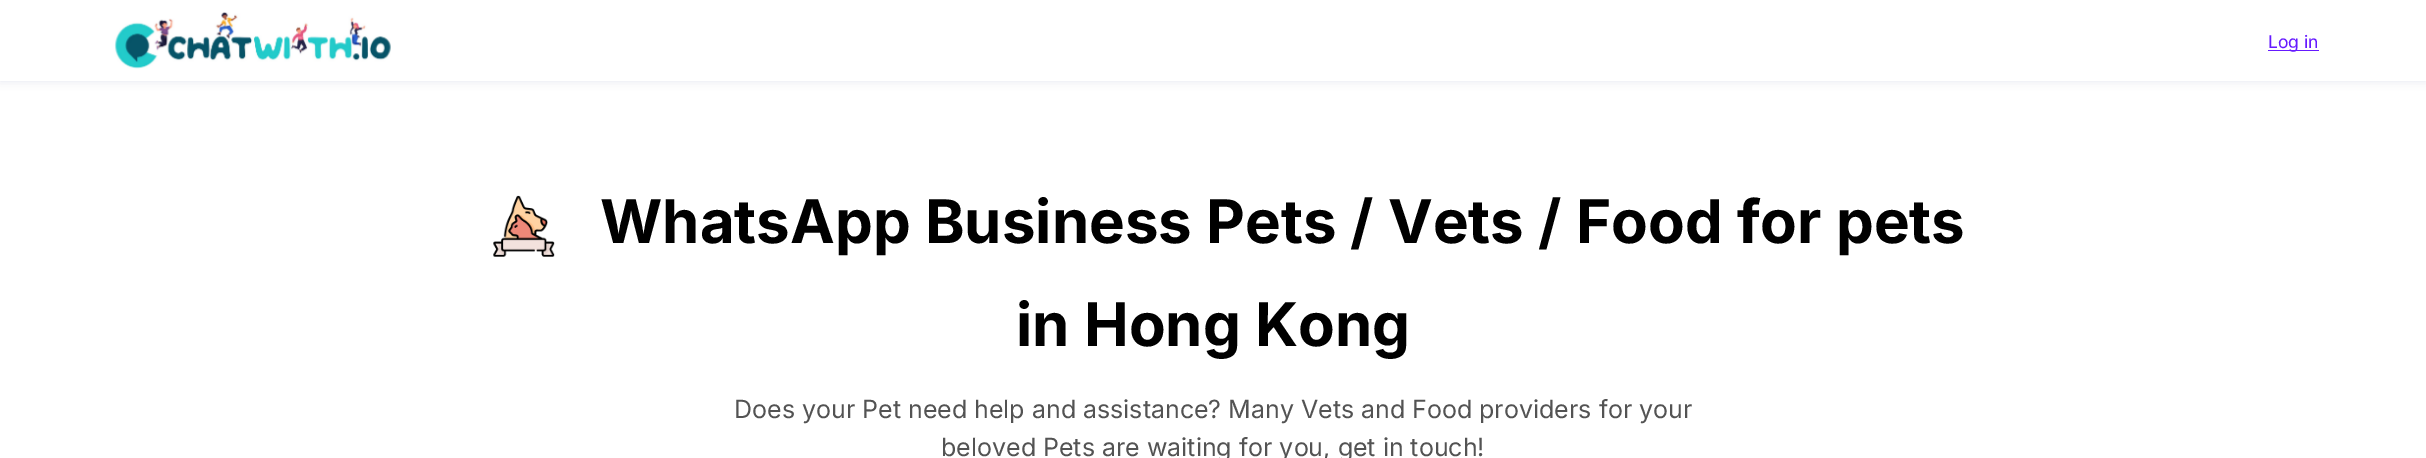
%!PS
<< /PageSize [2426 458] /PageUsesTransparency true >> setpagedevice
/q/gsave load def
/Q_/grestore load def
/C { dup -16 bitshift 255 div exch dup -8 bitshift 255 and 255 div exch 255 and 255 div setrgbcolor } def
/F { [ exch dup neg 0 0 3 -1 roll 0 0 ] selectfont } def
/T { moveto show } def
/R { rectfill } def
/A { dup .setfillconstantalpha .setstrokeconstantalpha } def
/Q { 5 dict begin { /r /h /w /y /x } { exch def } forall
  x r add y moveto x w add y 2 copy h add r arct x w add y h add x 1 index r arct
  x y h add x y r arct x y 2 copy exch w add exch r arct closepath end } def
/S { 12 dict begin { /a /b /q /h /w /y /x } { exch def } forall gsave /was 0 def
  9 -2 -9 { dup b mul 4 div /e exch def 1 sub .425 mul 2.718 exch exp 1 add a .99 .min exch div /now exch def
    1 1 now sub 1 was sub div sub A /was now def
    w h .min e 2 mul add 0 gt { x e sub y e sub w e 2 mul add h e 2 mul add
      q e add b .6 mul add w h .min 2 div e add .min 0 .max Q fill } if } for grestore end } def
/I { 5 dict begin { /h /w /y /x /name } { exch def } forall
  gsave x y translate w h scale
  w h 8 [w 0 0 h 0 0] name (r) file false 3 colorimage grestore end } def
0 .pushpdf14devicefilter
0 458 translate 1 -1 scale
4 setmiterlimit
16#FFFFFF C
0 0 2426 458 R
q
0 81 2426 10 rectclip
16#E1E5EE C
0 0 2426 81 0 5 1 S
Q_
(1.rgb) 114 12 277 57 I
16#661AFF C
2268 50 51 1 R
/Inter-Regular 17.5 F
(Log in) 2268 48 T
(2.rgb) 493 195 62 62 I
/Inter-Bold 60 F
16#000000 C
(WhatsApp Business Pets / Vets / Food for pets) 600 243 T
(in Hong Kong) 1016 346 T
/Inter-Regular 25 F
16#535353 C
(Does your Pet need help and assistance? Many Vets and Food providers for your) 734 418 T
(beloved Pets are waiting for you, get in touch!) 941 456 T
.poppdf14devicefilter showpage
